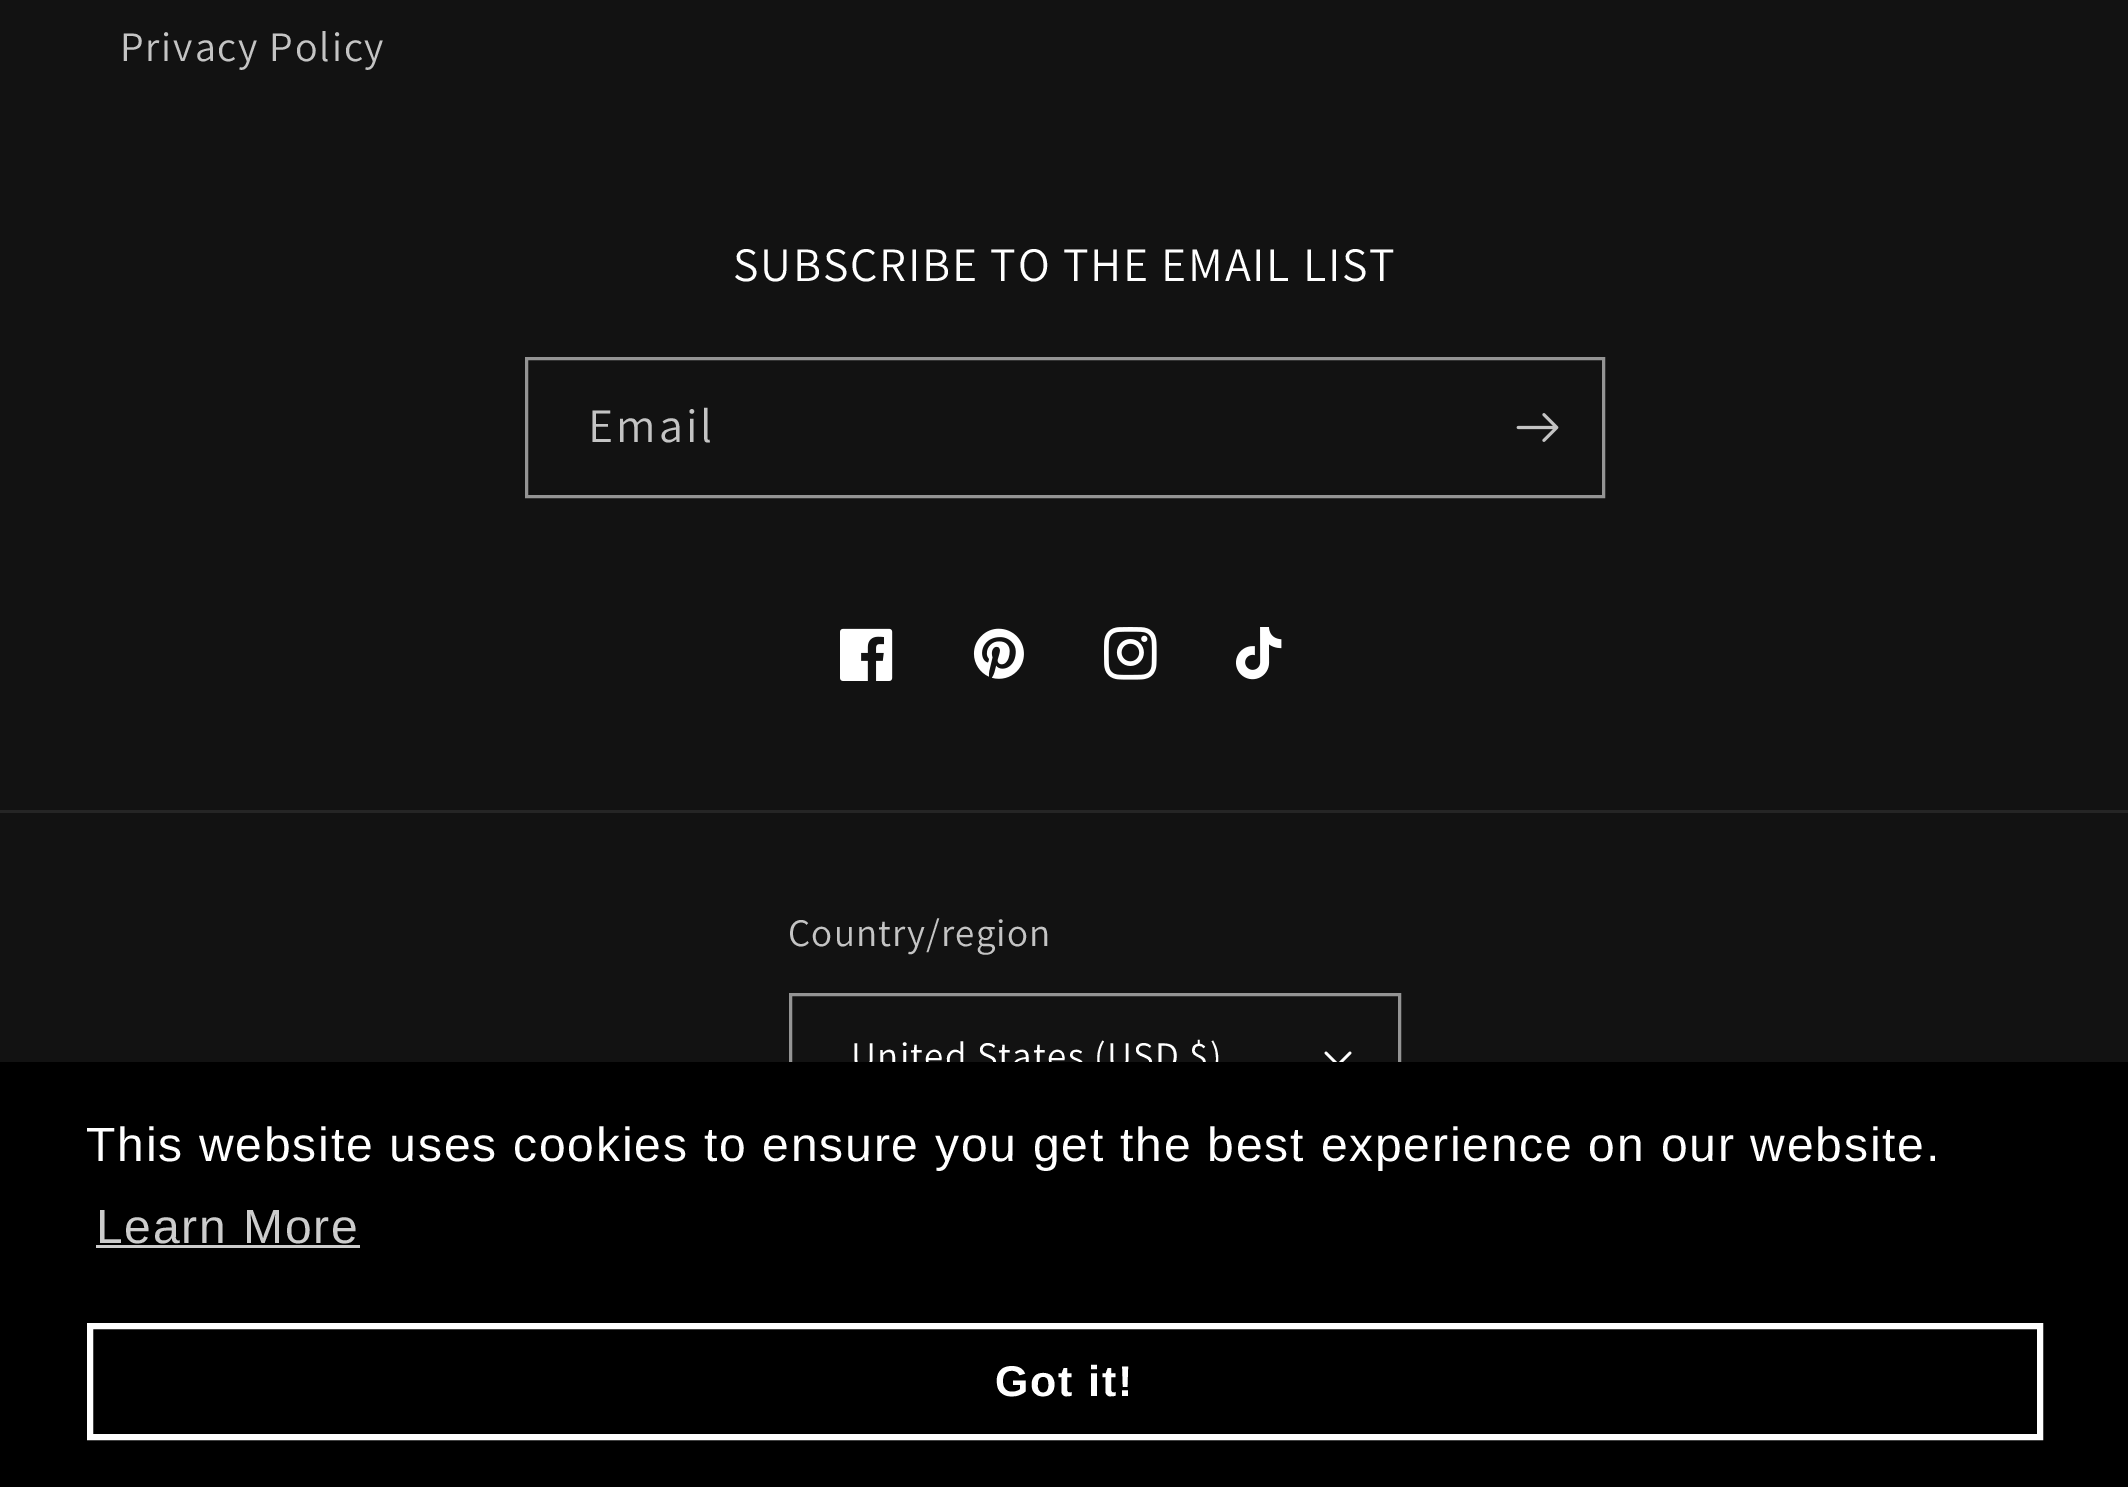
%!PS
<< /PageSize [2128 1487] >> setpagedevice
/m/moveto load def
/w/setlinewidth load def
/C { dup -16 bitshift 255 div exch dup -8 bitshift 255 and 255 div exch 255 and 255 div setrgbcolor } def
/F { [ exch dup neg 0 0 3 -1 roll 0 0 ] selectfont } def
/R { rectfill } def
/I { 5 dict begin { /h /w /y /x /name } { exch def } forall
  gsave x y translate w h scale
  w h 8 [w 0 0 h 0 0] name (r) file false 3 colorimage grestore end } def
0 1487 translate 1 -1 scale
4 setmiterlimit
16#121212 C
0 0 2128 1487 R
/Assistant-Regular 42 F
16#C4C4C4 C
120 61 m 1.8 0 (Privacy Policy) ashow
/Assistant-Regular 48 F
16#FFFFFF C
733 281 m 1.8 0 (SUBSCRIBE TO THE EMAIL LIST) ashow
16#949494 C
3 w
526.5 358.5 1077 138 rectstroke
16#C4C4C4 C
588 442 m 3 0 (Email) ashow
(1.rgb) 1516 413 43 29 I
(2.rgb) 840 628 53 53 I
(3.rgb) 973 628 51 51 I
(4.rgb) 1104 627 53 53 I
(5.rgb) 1236 627 46 53 I
16#252525 C
0 810 2128 3 R
/Assistant-Regular 39 F
16#C4C4C4 C
788 946 m 1.2 0 (Country/region) ashow
(6.rgb) 1324 1051 28 11 I
16#949494 C
790.5 994.5 609 123 rectstroke
16#FFFFFF C
851 1069 m 1.2 0 (United States \(USD $\)) ashow
16#000000 C
0 1062 2128 425 R
/LiberationSans-Regular 48 F
16#FFFFFF C
86 1161 m 1.8 0 (This website uses cookies to ensure you get the best experience on our website.) ashow
16#CCCCCC C
96 1243 m 1.8 0 (Learn More) ashow
96 1245 264 3 R
16#FFFFFF C
6 w
90 1326 1950 111 rectstroke
/LiberationSans-Bold 43 F
995 1396 m 1.8 0 (Got it!) ashow
showpage
